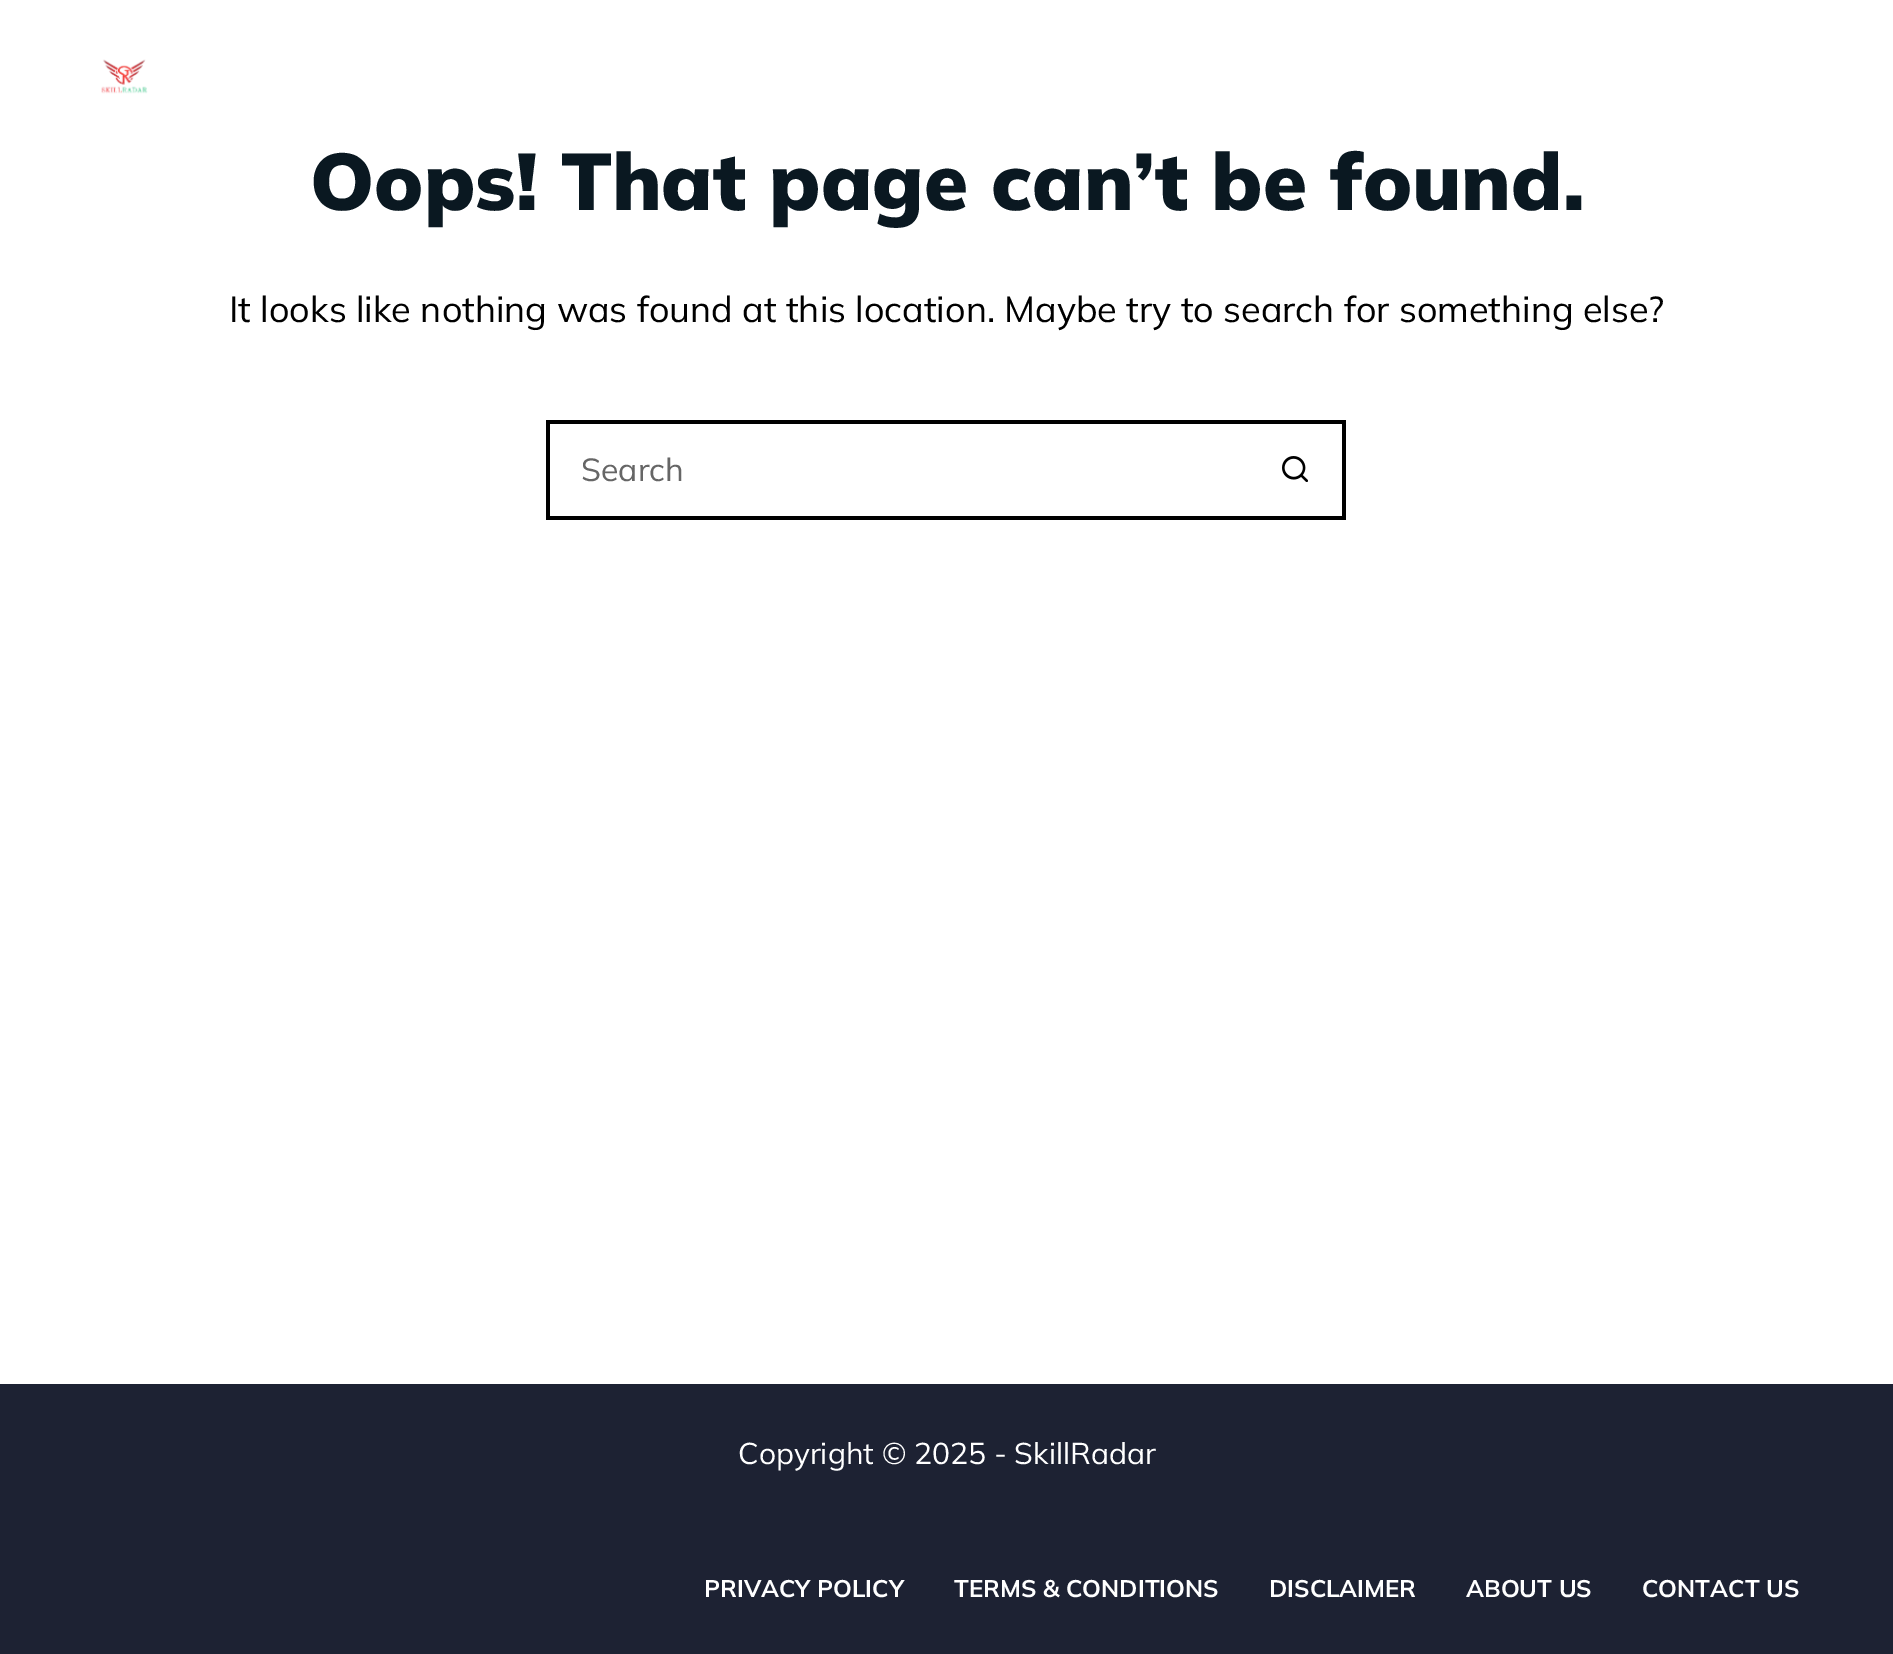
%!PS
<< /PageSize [1893 1654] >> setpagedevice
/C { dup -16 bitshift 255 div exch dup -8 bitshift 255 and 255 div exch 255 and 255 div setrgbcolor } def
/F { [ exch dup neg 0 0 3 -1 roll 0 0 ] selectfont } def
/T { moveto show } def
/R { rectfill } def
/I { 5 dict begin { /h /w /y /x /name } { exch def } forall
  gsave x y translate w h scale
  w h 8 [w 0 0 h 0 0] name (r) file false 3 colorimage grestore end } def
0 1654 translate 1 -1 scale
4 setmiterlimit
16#FFFFFF C
0 0 1893 1654 R
(1.rgb) 101 59 47 35 I
/Mulish-Black 80 F
16#0A1821 C
(Oops! That page can’t be found.) 310 210 T
/Mulish-Regular 36 F
16#000000 C
(It looks like nothing was found at this location. Maybe try to search for something else?) 229 322 T
546 420 800 4 R
546 516 700 4 R
546 420 4 100 R
/Mulish-Regular 32 F
16#666666 C
(Search) 581 481 T
16#000000 C
1342 420 4 100 R
1246 516 100 4 R
(2.rgb) 1282 456 26 26 I
16#1D2233 C
0 1384 1893 270 R
/Mulish-Regular 30 F
16#FFFFFF C
(Copyright © 2025 - SkillRadar) 738 1464 T
/Mulish-Bold 24 F
(PRIVACY POLICY) 704 1597 T
(TERMS & CONDITIONS) 954 1597 T
(DISCLAIMER) 1269 1597 T
(ABOUT US) 1466 1597 T
(CONTACT US) 1642 1597 T
showpage
